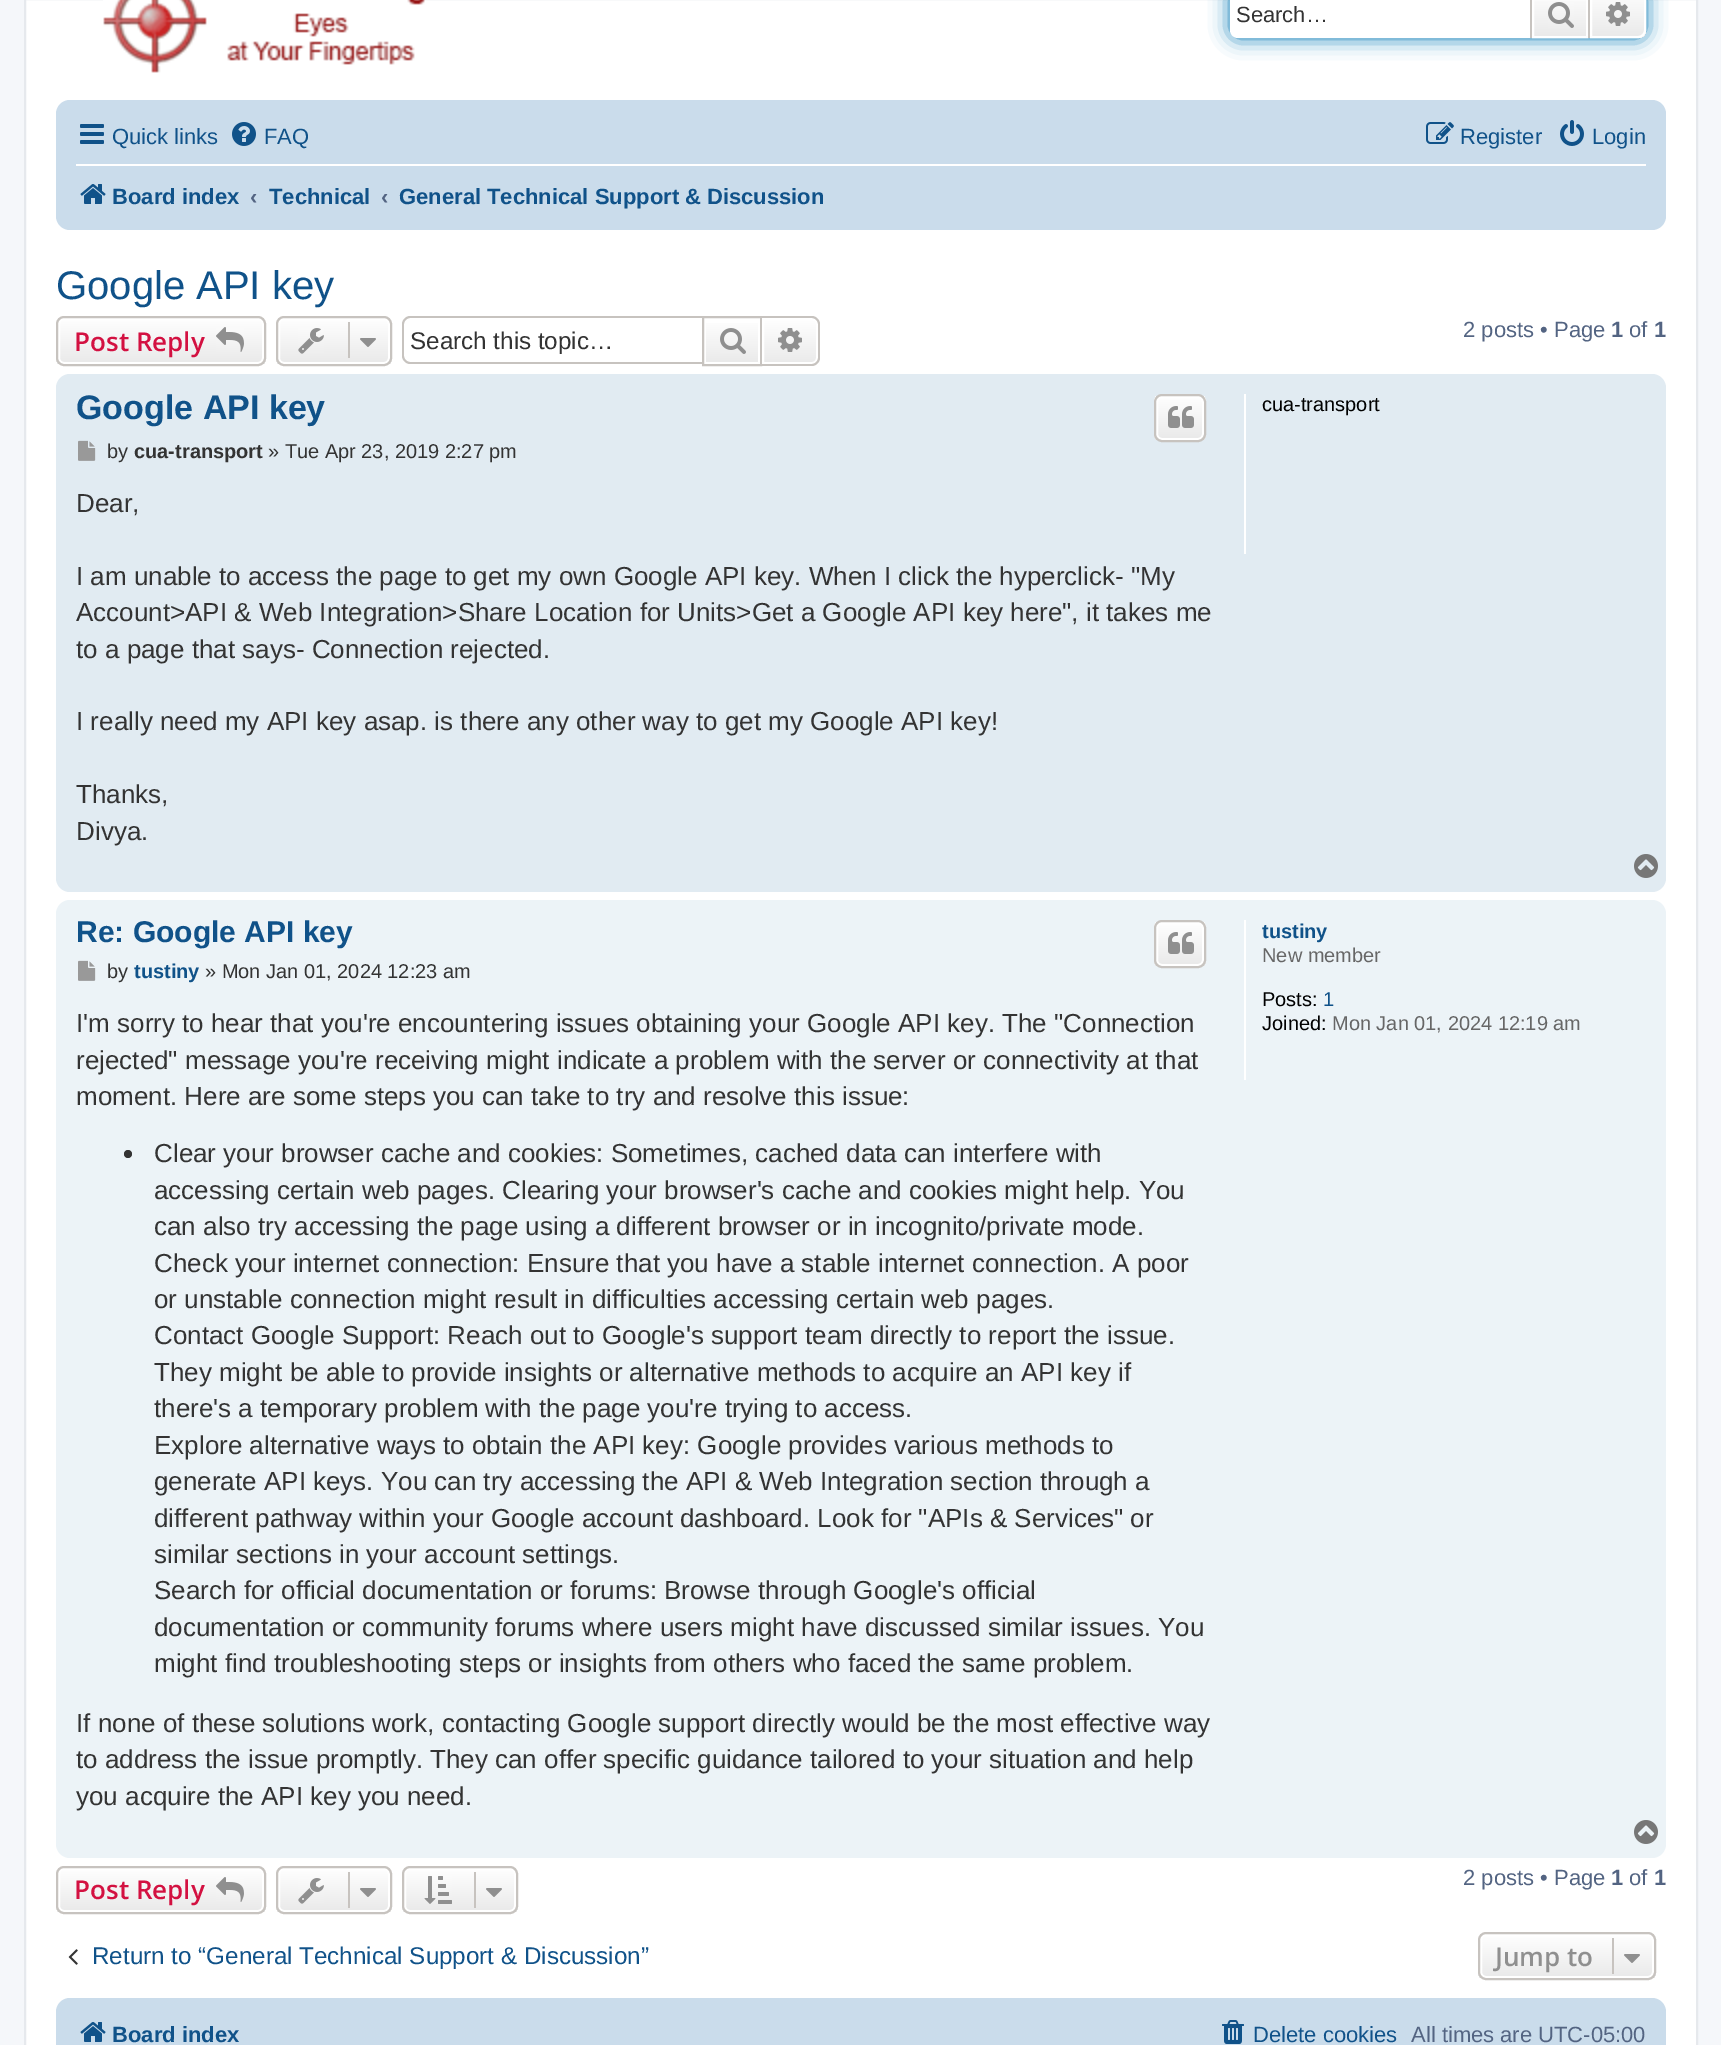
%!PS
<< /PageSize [1721 2045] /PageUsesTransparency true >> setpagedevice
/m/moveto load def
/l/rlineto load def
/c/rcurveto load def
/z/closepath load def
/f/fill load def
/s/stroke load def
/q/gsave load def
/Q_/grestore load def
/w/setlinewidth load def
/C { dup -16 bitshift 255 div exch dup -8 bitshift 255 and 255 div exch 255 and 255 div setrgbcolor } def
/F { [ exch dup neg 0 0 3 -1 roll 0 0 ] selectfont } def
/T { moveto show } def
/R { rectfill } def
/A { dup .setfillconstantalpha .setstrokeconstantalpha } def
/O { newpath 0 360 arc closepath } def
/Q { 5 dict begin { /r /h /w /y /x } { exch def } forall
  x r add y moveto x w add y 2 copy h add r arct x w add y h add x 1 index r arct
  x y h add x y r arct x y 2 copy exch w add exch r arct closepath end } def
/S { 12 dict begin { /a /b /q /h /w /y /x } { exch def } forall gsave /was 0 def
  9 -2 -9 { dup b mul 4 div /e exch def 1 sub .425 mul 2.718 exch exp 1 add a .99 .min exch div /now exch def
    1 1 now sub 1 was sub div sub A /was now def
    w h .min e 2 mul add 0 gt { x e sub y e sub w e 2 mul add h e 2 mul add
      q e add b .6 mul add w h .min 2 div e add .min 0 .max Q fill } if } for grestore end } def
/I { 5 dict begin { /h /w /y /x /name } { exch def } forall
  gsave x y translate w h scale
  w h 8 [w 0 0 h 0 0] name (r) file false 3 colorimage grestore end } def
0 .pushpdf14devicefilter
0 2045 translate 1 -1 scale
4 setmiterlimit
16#F5F7FA C
0 0 1721 2045 R
16#FFFFFF C
25 -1 m 1672 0 l 0 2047 l -1672 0 l z q f Q_
16#E6E9ED C
2 w
s
(1.rgb) 103 0 323 73 I
16#0075B0 C
1230 -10 416 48 8 10 1 S
16#FFFFFF C
1238 -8 m 292 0 l 0 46 l -292 0 l -4.5 0 -8 -3.5 -8 -8 c 0 -30 l 0 -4.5 3.5 -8 8 -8 c z f
/LiberationSans-Regular 22 F
16#333333 C
(Search…) 1236 22 T
q 1534 0 m 52 0 l 0 36 l -52 0 l z clip newpath
<< /ShadingType 2 /ColorSpace /DeviceRGB /Coords [1560 -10 1560 38] /Extend [true true] /Function << /FunctionType 2 /Domain [0 1] /C0 [1 1 1] /C1 [.914 .914 .914] /N 1 >> >> shfill Q_
16#FFFFFF C
1533 -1 54 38 rectstroke
16#C7C3BF C
1588 0 2 38 R
1530 0 2 38 R
(2.rgb) 1548 2 26 26 I
q 1590 -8 m 48 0 l 4.5 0 8 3.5 8 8 c 0 30 l 0 4.5 -3.5 8 -8 8 c -48 0 l z clip newpath
<< /ShadingType 2 /ColorSpace /DeviceRGB /Coords [1618 -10 1618 38] /Extend [true true] /Function << /FunctionType 2 /Domain [0 1] /C0 [1 1 1] /C1 [.914 .914 .914] /N 1 >> >> shfill Q_
16#FFFFFF C
1591 -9 m 47 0 l 4 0 7 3 7 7 c 0 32 l 0 4 -3 7 -7 7 c -47 0 l z s
(3.rgb) 1606 2 24 24 I
16#CADCEB C
56 100 1610 130 14 Q f
(4.rgb) 80 124 24 20 I
16#105289 C
(Quick links) 112 144 T
(5.rgb) 232 122 24 24 I
(FAQ) 264 144 T
(6.rgb) 1426 122 28 22 I
(Register) 1460 144 T
(7.rgb) 1560 120 24 26 I
(Login) 1592 144 T
16#FFFFFF C
76 164 1570 2 R
(8.rgb) 80 184 26 20 I
/LiberationSans-Bold 22 F
16#105289 C
(Board index) 112 204 T
16#536482 C
(‹) 250 204 T
16#105289 C
(Technical) 269 204 T
16#536482 C
(‹) 381 204 T
16#105289 C
(General Technical Support & Discussion) 399 204 T
/LiberationSans-Regular 40 F
(Google API key) 56 299 T
q
56 316 210 50 8 Q clip newpath
q 56 318 m 210 0 l 0 46 l -210 0 l z clip newpath
<< /ShadingType 2 /ColorSpace /DeviceRGB /Coords [161 318 161 364] /Extend [true true] /Function << /FunctionType 2 /Domain [0 1] /C0 [1 1 1] /C1 [.914 .914 .914] /N 1 >> >> shfill Q_
Q_
16#FFFFFF C
59 319 204 44 5 Q s
16#C7C3BF C
57 317 208 48 7 Q s
/OpenSans-SemiBold 26 F
16#D31141 C
(Post Reply) 74 351 T
(9.rgb) 216 327 28 25 I
q
276 316 116 50 8 Q clip newpath
q 276 318 m 116 0 l 0 46 l -116 0 l z clip newpath
<< /ShadingType 2 /ColorSpace /DeviceRGB /Coords [334 318 334 364] /Extend [true true] /Function << /FunctionType 2 /Domain [0 1] /C0 [1 1 1] /C1 [.914 .914 .914] /N 1 >> >> shfill Q_
Q_
16#FFFFFF C
279 319 110 44 5 Q s
16#C7C3BF C
277 317 114 48 7 Q s
(10.rgb) 298 328 26 26 I
348 322 2 36 R
(11.rgb) 360 338 16 9 I
410 316 m 292 0 l 0 48 l -292 0 l -4 0 -8 -4 -8 -8 c 0 -32 l 0 -4 4 -8 8 -8 c z 410 318 m 292 0 l 0 44 l -292 0 l -3 0 -6 -3 -6 -6 c 0 -32 l 0 -3 3 -6 6 -6 c z eofill
/LiberationSans-Regular 24.2 F
16#333333 C
(Search this topic…) 410 349 T
q 706 323 m 52 0 l 0 39 l -52 0 l z clip newpath
<< /ShadingType 2 /ColorSpace /DeviceRGB /Coords [732 318 732 364] /Extend [true true] /Function << /FunctionType 2 /Domain [0 1] /C0 [1 1 1] /C1 [.914 .914 .914] /N 1 >> >> shfill Q_
16#C7C3BF C
703 317 58 48 rectstroke
(12.rgb) 720 328 26 26 I
q 763 319 m 49 0 l 3 0 5 2 5 5 c 0 34 l 0 3 -2 5 -5 5 c -49 0 l z clip newpath
<< /ShadingType 2 /ColorSpace /DeviceRGB /Coords [790 318 790 364] /Extend [true true] /Function << /FunctionType 2 /Domain [0 1] /C0 [1 1 1] /C1 [.914 .914 .914] /N 1 >> >> shfill Q_
16#FFFFFF C
763 319 m 49 0 l 3 0 5 2 5 5 c 0 34 l 0 3 -2 5 -5 5 c -49 0 l z s
16#C7C3BF C
762 316 m 50 0 l 4 0 8 4 8 8 c 0 34 l 0 4 -4 8 -8 8 c -50 0 l z 762 318 m 50 0 l 3 0 6 3 6 6 c 0 34 l 0 3 -3 6 -6 6 c -50 0 l z eofill
(13.rgb) 778 328 24 24 I
/LiberationSans-Regular 22 F
16#536482 C
(2 posts • Page) 1463 337 T
/LiberationSans-Bold 22 F
(1) 1611 337 T
/LiberationSans-Regular 22 F
(of) 1629 337 T
/LiberationSans-Bold 22 F
(1) 1654 337 T
16#E1EBF2 C
56 374 1610 518 14 Q f
/LiberationSans-Bold 34 F
16#105289 C
(Google API key) 76 419 T
q
1154 394 52 48 8 Q clip newpath
q 1154 396 m 52 0 l 0 44 l -52 0 l z clip newpath
<< /ShadingType 2 /ColorSpace /DeviceRGB /Coords [1180 396 1180 440] /Extend [true true] /Function << /FunctionType 2 /Domain [0 1] /C0 [1 1 1] /C1 [.914 .914 .914] /N 1 >> >> shfill Q_
Q_
16#FFFFFF C
1157 397 46 42 5 Q s
16#C7C3BF C
1155 395 50 46 7 Q s
(14.rgb) 1168 406 26 22 I
(15.rgb) 78 440 18 21 I
/LiberationSans-Regular 20 F
16#333333 C
(by) 107 458 T
/LiberationSans-Bold 20 F
(cua-transport) 134 458 T
/LiberationSans-Regular 20 F
(» Tue Apr 23, 2019 2:27 pm) 268 458 T
/LiberationSans-Regular 26 F
(Dear,) 76 512 T
(I am unable to access the page to get my own Google API key. When I click the hyperclick- "My) 76 585 T
(Account>API & Web Integration>Share Location for Units>Get a Google API key here", it takes me) 76 621 T
(to a page that says- Connection rejected.) 76 658 T
(I really need my API key asap. is there any other way to get my Google API key!) 76 730 T
(Thanks,) 76 803 T
(Divya.) 76 840 T
16#FFFFFF C
1244 394 2 160 R
/LiberationSans-Regular 20 F
16#000000 C
(cua-transport) 1262 411 T
(16.rgb) 1634 854 24 24 I
16#ECF3F7 C
56 900 1610 958 14 Q f
/LiberationSans-Bold 30 F
16#105289 C
(Re: Google API key) 76 942 T
q
1154 920 52 48 8 Q clip newpath
q 1154 922 m 52 0 l 0 44 l -52 0 l z clip newpath
<< /ShadingType 2 /ColorSpace /DeviceRGB /Coords [1180 922 1180 966] /Extend [true true] /Function << /FunctionType 2 /Domain [0 1] /C0 [1 1 1] /C1 [.914 .914 .914] /N 1 >> >> shfill Q_
Q_
16#FFFFFF C
1157 923 46 42 5 Q s
16#C7C3BF C
1155 921 50 46 7 Q s
(14.rgb) 1168 932 26 22 I
(17.rgb) 78 960 18 21 I
/LiberationSans-Regular 20 F
16#333333 C
(by) 107 978 T
/LiberationSans-Bold 20 F
16#105289 C
(tustiny) 134 978 T
/LiberationSans-Regular 20 F
16#333333 C
(» Mon Jan 01, 2024 12:23 am) 205 978 T
/LiberationSans-Regular 26 F
(I'm sorry to hear that you're encountering issues obtaining your Google API key. The "Connection) 76 1032 T
(rejected" message you're receiving might indicate a problem with the server or connectivity at that) 76 1069 T
(moment. Here are some steps you can take to try and resolve this issue:) 76 1105 T
128 1154 4 O f
(Clear your browser cache and cookies: Sometimes, cached data can interfere with) 154 1162 T
(accessing certain web pages. Clearing your browser's cache and cookies might help. You) 154 1199 T
(can also try accessing the page using a different browser or in incognito/private mode.) 154 1235 T
(Check your internet connection: Ensure that you have a stable internet connection. A poor) 154 1272 T
(or unstable connection might result in difficulties accessing certain web pages.) 154 1308 T
(Contact Google Support: Reach out to Google's support team directly to report the issue.) 154 1344 T
(They might be able to provide insights or alternative methods to acquire an API key if) 154 1381 T
(there's a temporary problem with the page you're trying to access.) 154 1417 T
(Explore alternative ways to obtain the API key: Google provides various methods to) 154 1454 T
(generate API keys. You can try accessing the API & Web Integration section through a) 154 1490 T
(different pathway within your Google account dashboard. Look for "APIs & Services" or) 154 1527 T
(similar sections in your account settings.) 154 1563 T
(Search for official documentation or forums: Browse through Google's official) 154 1599 T
(documentation or community forums where users might have discussed similar issues. You) 154 1636 T
(might find troubleshooting steps or insights from others who faced the same problem.) 154 1672 T
(If none of these solutions work, contacting Google support directly would be the most effective way) 76 1732 T
(to address the issue promptly. They can offer specific guidance tailored to your situation and help) 76 1768 T
(you acquire the API key you need.) 76 1805 T
16#FFFFFF C
1244 920 2 160 R
/LiberationSans-Bold 20 F
16#105289 C
(tustiny) 1262 938 T
/LiberationSans-Regular 20 F
16#666666 C
(New member) 1262 962 T
16#000000 C
(Posts:) 1262 1006 T
16#105289 C
(1) 1323 1006 T
16#000000 C
(Joined:) 1262 1030 T
16#666666 C
(Mon Jan 01, 2024 12:19 am) 1332 1030 T
(18.rgb) 1634 1820 24 24 I
q
56 1866 210 48 8 Q clip newpath
q 56 1868 m 210 0 l 0 44 l -210 0 l z clip newpath
<< /ShadingType 2 /ColorSpace /DeviceRGB /Coords [161 1868 161 1912] /Extend [true true] /Function << /FunctionType 2 /Domain [0 1] /C0 [1 1 1] /C1 [.914 .914 .914] /N 1 >> >> shfill Q_
Q_
16#FFFFFF C
59 1869 204 42 5 Q s
16#C7C3BF C
57 1867 208 46 7 Q s
/OpenSans-SemiBold 26 F
16#D31141 C
(Post Reply) 74 1899 T
(19.rgb) 216 1877 28 25 I
q
276 1866 116 48 8 Q clip newpath
q 276 1868 m 116 0 l 0 44 l -116 0 l z clip newpath
<< /ShadingType 2 /ColorSpace /DeviceRGB /Coords [334 1868 334 1912] /Extend [true true] /Function << /FunctionType 2 /Domain [0 1] /C0 [1 1 1] /C1 [.914 .914 .914] /N 1 >> >> shfill Q_
Q_
16#FFFFFF C
279 1869 110 42 5 Q s
16#C7C3BF C
277 1867 114 46 7 Q s
(20.rgb) 298 1878 26 26 I
348 1872 2 36 R
(21.rgb) 360 1888 16 9 I
q
402 1866 116 48 8 Q clip newpath
q 402 1868 m 116 0 l 0 44 l -116 0 l z clip newpath
<< /ShadingType 2 /ColorSpace /DeviceRGB /Coords [460 1868 460 1912] /Extend [true true] /Function << /FunctionType 2 /Domain [0 1] /C0 [1 1 1] /C1 [.914 .914 .914] /N 1 >> >> shfill Q_
Q_
16#FFFFFF C
405 1869 110 42 5 Q s
16#C7C3BF C
403 1867 114 46 7 Q s
(22.rgb) 424 1876 28 28 I
474 1872 2 36 R
(21.rgb) 486 1888 16 9 I
/LiberationSans-Regular 22 F
16#536482 C
(2 posts • Page) 1463 1885 T
/LiberationSans-Bold 22 F
(1) 1611 1885 T
/LiberationSans-Regular 22 F
(of) 1629 1885 T
/LiberationSans-Bold 22 F
(1) 1654 1885 T
(23.rgb) 68 1949 10 16 I
/LiberationSans-Regular 24.2 F
16#105289 C
(Return to “General Technical Support & Discussion”) 92 1964 T
q
1478 1932 178 48 8 Q clip newpath
q 1478 1934 m 178 0 l 0 44 l -178 0 l z clip newpath
<< /ShadingType 2 /ColorSpace /DeviceRGB /Coords [1567 1934 1567 1978] /Extend [true true] /Function << /FunctionType 2 /Domain [0 1] /C0 [1 1 1] /C1 [.914 .914 .914] /N 1 >> >> shfill Q_
Q_
16#FFFFFF C
1481 1935 172 42 5 Q s
16#C7C3BF C
1479 1933 176 46 7 Q s
/OpenSans-SemiBold 26 F
16#8F8F8F C
(Jump to) 1495 1966 T
16#C7C3BF C
1612 1938 2 36 R
(21.rgb) 1624 1954 16 9 I
16#CADCEB C
56 1998 1610 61 14 Q f
(8.rgb) 80 2022 26 20 I
/LiberationSans-Bold 22 F
16#105289 C
(Board index) 112 2042 T
(24.rgb) 1222 2020 22 24 I
/LiberationSans-Regular 22 F
(Delete cookies) 1253 2042 T
16#536482 C
(All times are UTC-05:00) 1411 2042 T
.poppdf14devicefilter showpage
